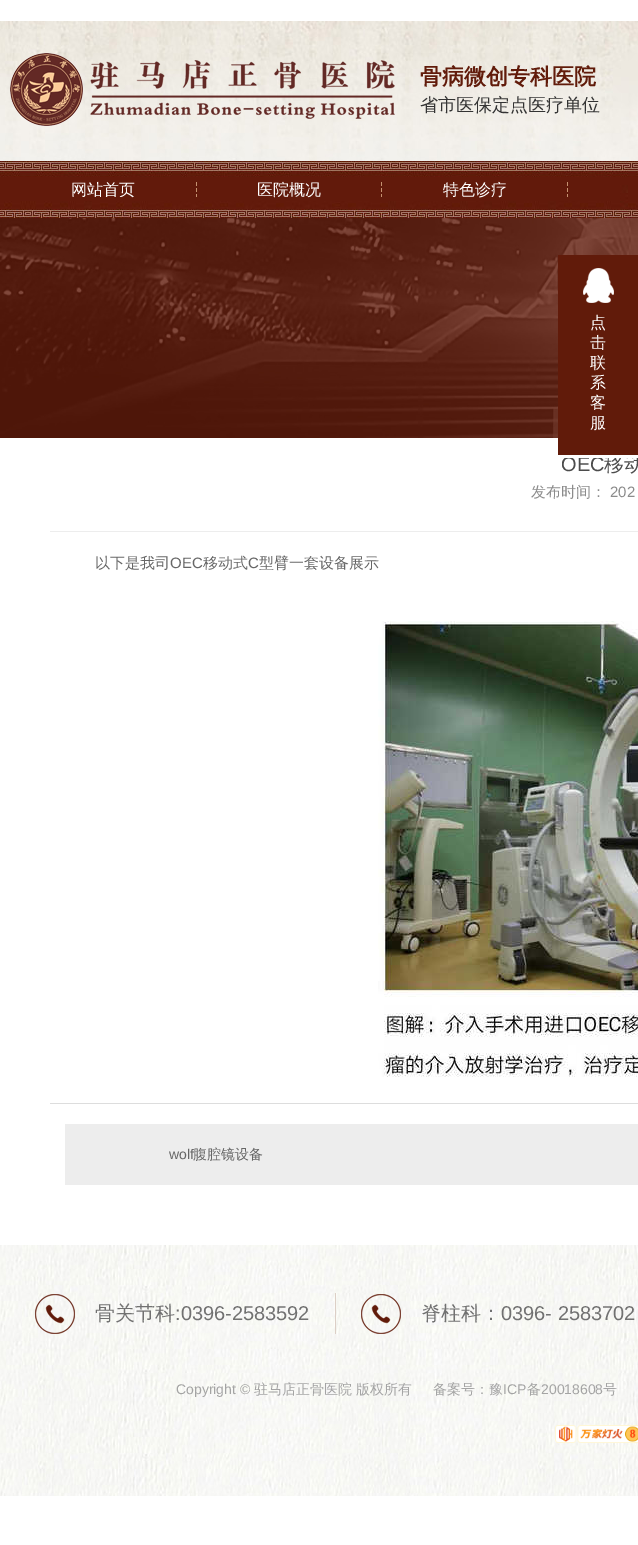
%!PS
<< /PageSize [638 1545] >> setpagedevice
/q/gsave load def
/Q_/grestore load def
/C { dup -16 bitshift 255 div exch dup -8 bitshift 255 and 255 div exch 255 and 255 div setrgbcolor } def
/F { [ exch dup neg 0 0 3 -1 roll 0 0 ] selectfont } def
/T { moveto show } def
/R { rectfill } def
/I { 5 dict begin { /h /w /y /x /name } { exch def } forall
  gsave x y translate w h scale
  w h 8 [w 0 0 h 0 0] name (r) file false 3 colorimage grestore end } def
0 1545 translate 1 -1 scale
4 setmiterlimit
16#FFFFFF C
0 0 638 1545 R
(1.rgb) 0 21 638 140 I
(2.rgb) 10 53 385 73 I
/WenQuanYiZenHei-Bold 22 F
16#611B0A C
(骨病微创专科医院) 420 84 T
/WenQuanYiZenHei-Medium 18 F
16#333333 C
(省市医保定点医疗单位) 420 111 T
(3.rgb) 0 161 638 57 I
/WenQuanYiZenHei-Medium 16 F
16#FFFFFF C
(网站首页) 71 195 T
(4.rgb) 196 182 1 15 I
(医院概况) 257 195 T
(4.rgb) 381 182 1 15 I
(特色诊疗) 443 195 T
(4.rgb) 567 182 1 15 I
(5.rgb) 0 218 638 220 I
16#611B0A C
558 255 80 200 R
(6.rgb) 583 268 31 35 I
16#FFFFFF C
(点) 590 328 T
(击) 590 348 T
(联) 590 368 T
(系) 590 388 T
(客) 590 408 T
(服) 590 428 T
q
25 458 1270 747 rectclip
/LiberationSans-Regular 20 F
16#4C4C4C C
(OEC) 561 471 T
/WenQuanYiZenHei-Medium 20 F
(移动) 604 471 T
Q_
/WenQuanYiZenHei-Medium 15 F
16#8C8C8C C
(发布时间：) 531 497 T
/LiberationSans-Regular 15 F
(202) 610 497 T
16#EDEDED C
50 531 588 1 R
16#DDDDDD C
50 1103 588 1 R
/WenQuanYiZenHei-Medium 15 F
16#666666 C
(以下是我司) 95 568 T
/LiberationSans-Regular 15 F
(OEC) 170 568 T
/WenQuanYiZenHei-Medium 15 F
(移动式) 203 568 T
/LiberationSans-Regular 15 F
(C) 248 568 T
/WenQuanYiZenHei-Medium 15 F
(型臂一套设备展示) 259 568 T
(7.rgb) 378 621 260 456 I
16#EDEDED C
65 1124 573 61 R
/LiberationSans-Regular 14 F
16#666666 C
(wolf) 169 1159 T
/WenQuanYiZenHei-Medium 14 F
(腹腔镜设备) 193 1159 T
(8.rgb) 0 1245 638 251 I
(9.rgb) 35 1294 40 40 I
/WenQuanYiZenHei-Medium 20 F
16#717171 C
(骨关节科) 95 1320 T
/LiberationSans-Regular 20 F
(:0396-2583592) 175 1320 T
16#DCCFC6 C
335 1293 1 41 R
(10.rgb) 361 1294 40 40 I
/WenQuanYiZenHei-Medium 20 F
16#717171 C
(脊柱科：) 421 1320 T
/LiberationSans-Regular 20 F
(0396- 2583702) 501 1320 T
/LiberationSans-Regular 14 F
16#A4A4A4 C
(Copyright ©) 176 1394 T
/WenQuanYiZenHei-Medium 14 F
(驻马店正骨医院) 254 1394 T
(版权所有) 356 1394 T
(备案号：豫) 433 1394 T
/LiberationSans-Regular 14 F
(ICP) 503 1394 T
/WenQuanYiZenHei-Medium 14 F
(备) 527 1394 T
/LiberationSans-Regular 14 F
(20018608) 541 1394 T
/WenQuanYiZenHei-Medium 14 F
(号) 603 1394 T
(11.rgb) 555 1425 83 18 I
showpage
